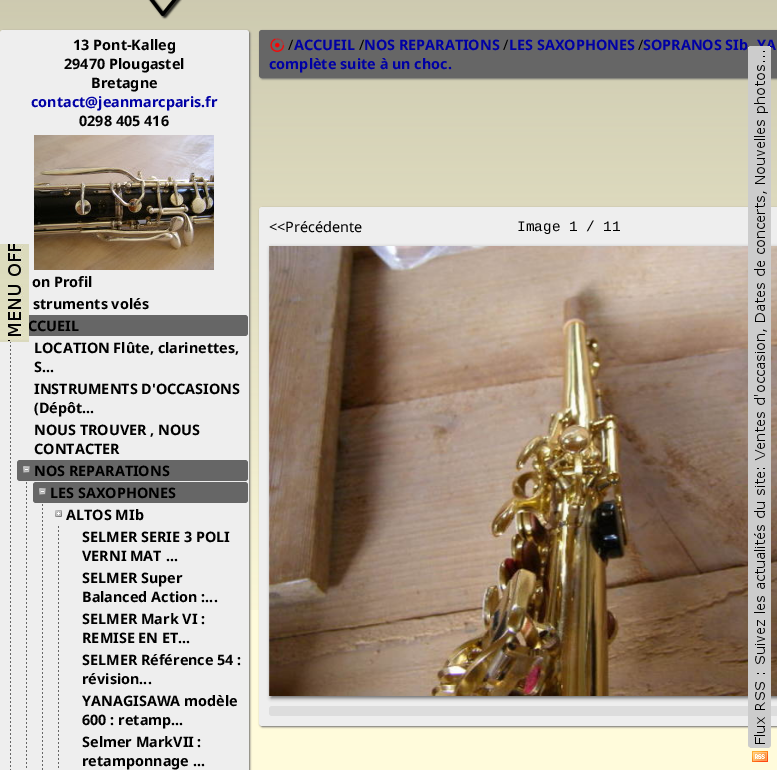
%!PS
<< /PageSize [777 770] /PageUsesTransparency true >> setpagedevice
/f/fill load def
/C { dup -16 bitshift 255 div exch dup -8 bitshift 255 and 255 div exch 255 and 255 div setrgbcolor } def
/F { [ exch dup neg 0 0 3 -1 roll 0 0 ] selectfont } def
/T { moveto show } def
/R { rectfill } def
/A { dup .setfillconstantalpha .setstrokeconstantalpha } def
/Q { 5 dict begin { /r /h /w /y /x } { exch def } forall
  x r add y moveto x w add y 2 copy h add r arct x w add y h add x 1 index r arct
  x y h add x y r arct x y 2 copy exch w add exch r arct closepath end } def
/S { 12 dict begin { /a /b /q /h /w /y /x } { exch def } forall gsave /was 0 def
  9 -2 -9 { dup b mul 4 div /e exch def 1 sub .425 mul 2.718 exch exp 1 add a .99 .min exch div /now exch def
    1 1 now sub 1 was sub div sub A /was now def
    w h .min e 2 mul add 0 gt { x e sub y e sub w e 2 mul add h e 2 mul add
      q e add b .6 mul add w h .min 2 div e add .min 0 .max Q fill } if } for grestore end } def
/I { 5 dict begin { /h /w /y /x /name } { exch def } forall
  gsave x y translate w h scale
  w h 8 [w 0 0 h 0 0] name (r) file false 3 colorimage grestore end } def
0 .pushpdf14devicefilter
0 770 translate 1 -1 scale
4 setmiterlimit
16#FFFBDB C
0 0 777 770 R
(1.rgb) 0 0 777 610 I
(2.rgb) 148 0 34 20 I
16#666666 C
1 31 249 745 3 1 1 S
16#EEEEEE C
0 30 249 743 3 Q f
/NotoSans-Bold 14.4 F
16#000000 C
(13 Pont-Kalleg) 73 50 T
(29470 Plougastel) 64 69 T
(Bretagne) 91 88 T
16#0000A5 C
(contact@jeanmarcparis.fr) 31 107 T
16#000000 C
(0298 405 416) 79 126 T
(3.rgb) 34 135 180 135 I
(on Profil) 32 287 T
(struments volés) 33 309 T
16#666666 C
1 315 247 21 3 Q f
16#000000 C
(CCUEIL) 28 331 T
(4.rgb) 10 342 1 428 I
(LOCATION Flûte, clarinettes,) 34 353 T
(S...) 34 372 T
(INSTRUMENTS D'OCCASIONS) 34 394 T
(\(Dépôt...) 34 413 T
(NOUS TROUVER , NOUS) 34 435 T
(CONTACTER) 34 454 T
16#666666 C
17 460 231 21 3 Q f
(5.rgb) 23 466 7 7 I
16#000000 C
(NOS REPARATIONS) 34 476 T
(6.rgb) 26 482 1 286 I
16#666666 C
33 482 215 21 3 Q f
(5.rgb) 39 488 7 7 I
16#000000 C
(LES SAXOPHONES) 50 498 T
(7.rgb) 42 504 1 266 I
(8.rgb) 55 510 7 7 I
(ALTOS MIb) 66 520 T
(9.rgb) 58 526 1 242 I
(SELMER SERIE 3 POLI) 82 542 T
(VERNI MAT ...) 82 561 T
(SELMER Super) 82 583 T
(Balanced Action :...) 82 602 T
(SELMER Mark VI :) 82 624 T
(REMISE EN ET...) 82 643 T
(SELMER Référence 54 :) 82 665 T
(révision...) 82 684 T
(YANAGISAWA modèle) 82 706 T
(600 : retamp...) 82 725 T
(Selmer MarkVII :) 82 747 T
(retamponnage ...) 82 766 T
16#666666 C
260 31 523 48 3 1 1 S
259 30 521 48 3 Q f
(10.rgb) 270 38 15 15 I
/NotoSans-Regular 14.4 F
16#000000 C
(/) 288 50 T
/NotoSans-Bold 14.4 F
16#0000A5 C
(ACCUEIL) 294 50 T
/NotoSans-Regular 14.4 F
16#000000 C
(/) 359 50 T
/NotoSans-Bold 14.4 F
16#0000A5 C
(NOS REPARATIONS) 364 50 T
/NotoSans-Regular 14.4 F
16#000000 C
(/) 503 50 T
/NotoSans-Bold 14.4 F
16#0000A5 C
(LES SAXOPHONES) 509 50 T
/NotoSans-Regular 14.4 F
16#000000 C
(/) 638 50 T
/NotoSans-Bold 14.4 F
16#0000A5 C
(SOPRANOS SIb) 643 50 T
(YA) 757 50 T
(complète suite à un choc.) 269 69 T
16#666666 C
260 208 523 519 3 1 1 S
16#EEEEEE C
259 207 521 519 3 Q f
/NotoSans-Regular 14.4 F
16#000000 C
(<<Précédente) 269 232 T
/LiberationMono-Regular 14.4 F
(Image 1 / 11) 517 231 T
16#666666 C
271 248 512 450 0 2 1 S
(11.rgb) 268 246 509 450 I
16#DDDDDD C
269 706 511 10 3 Q f
(12.rgb) 0 244 29 98 I
(13.rgb) 748 46 23 702 I
(14.rgb) 752 751 16 11 I
.poppdf14devicefilter showpage
